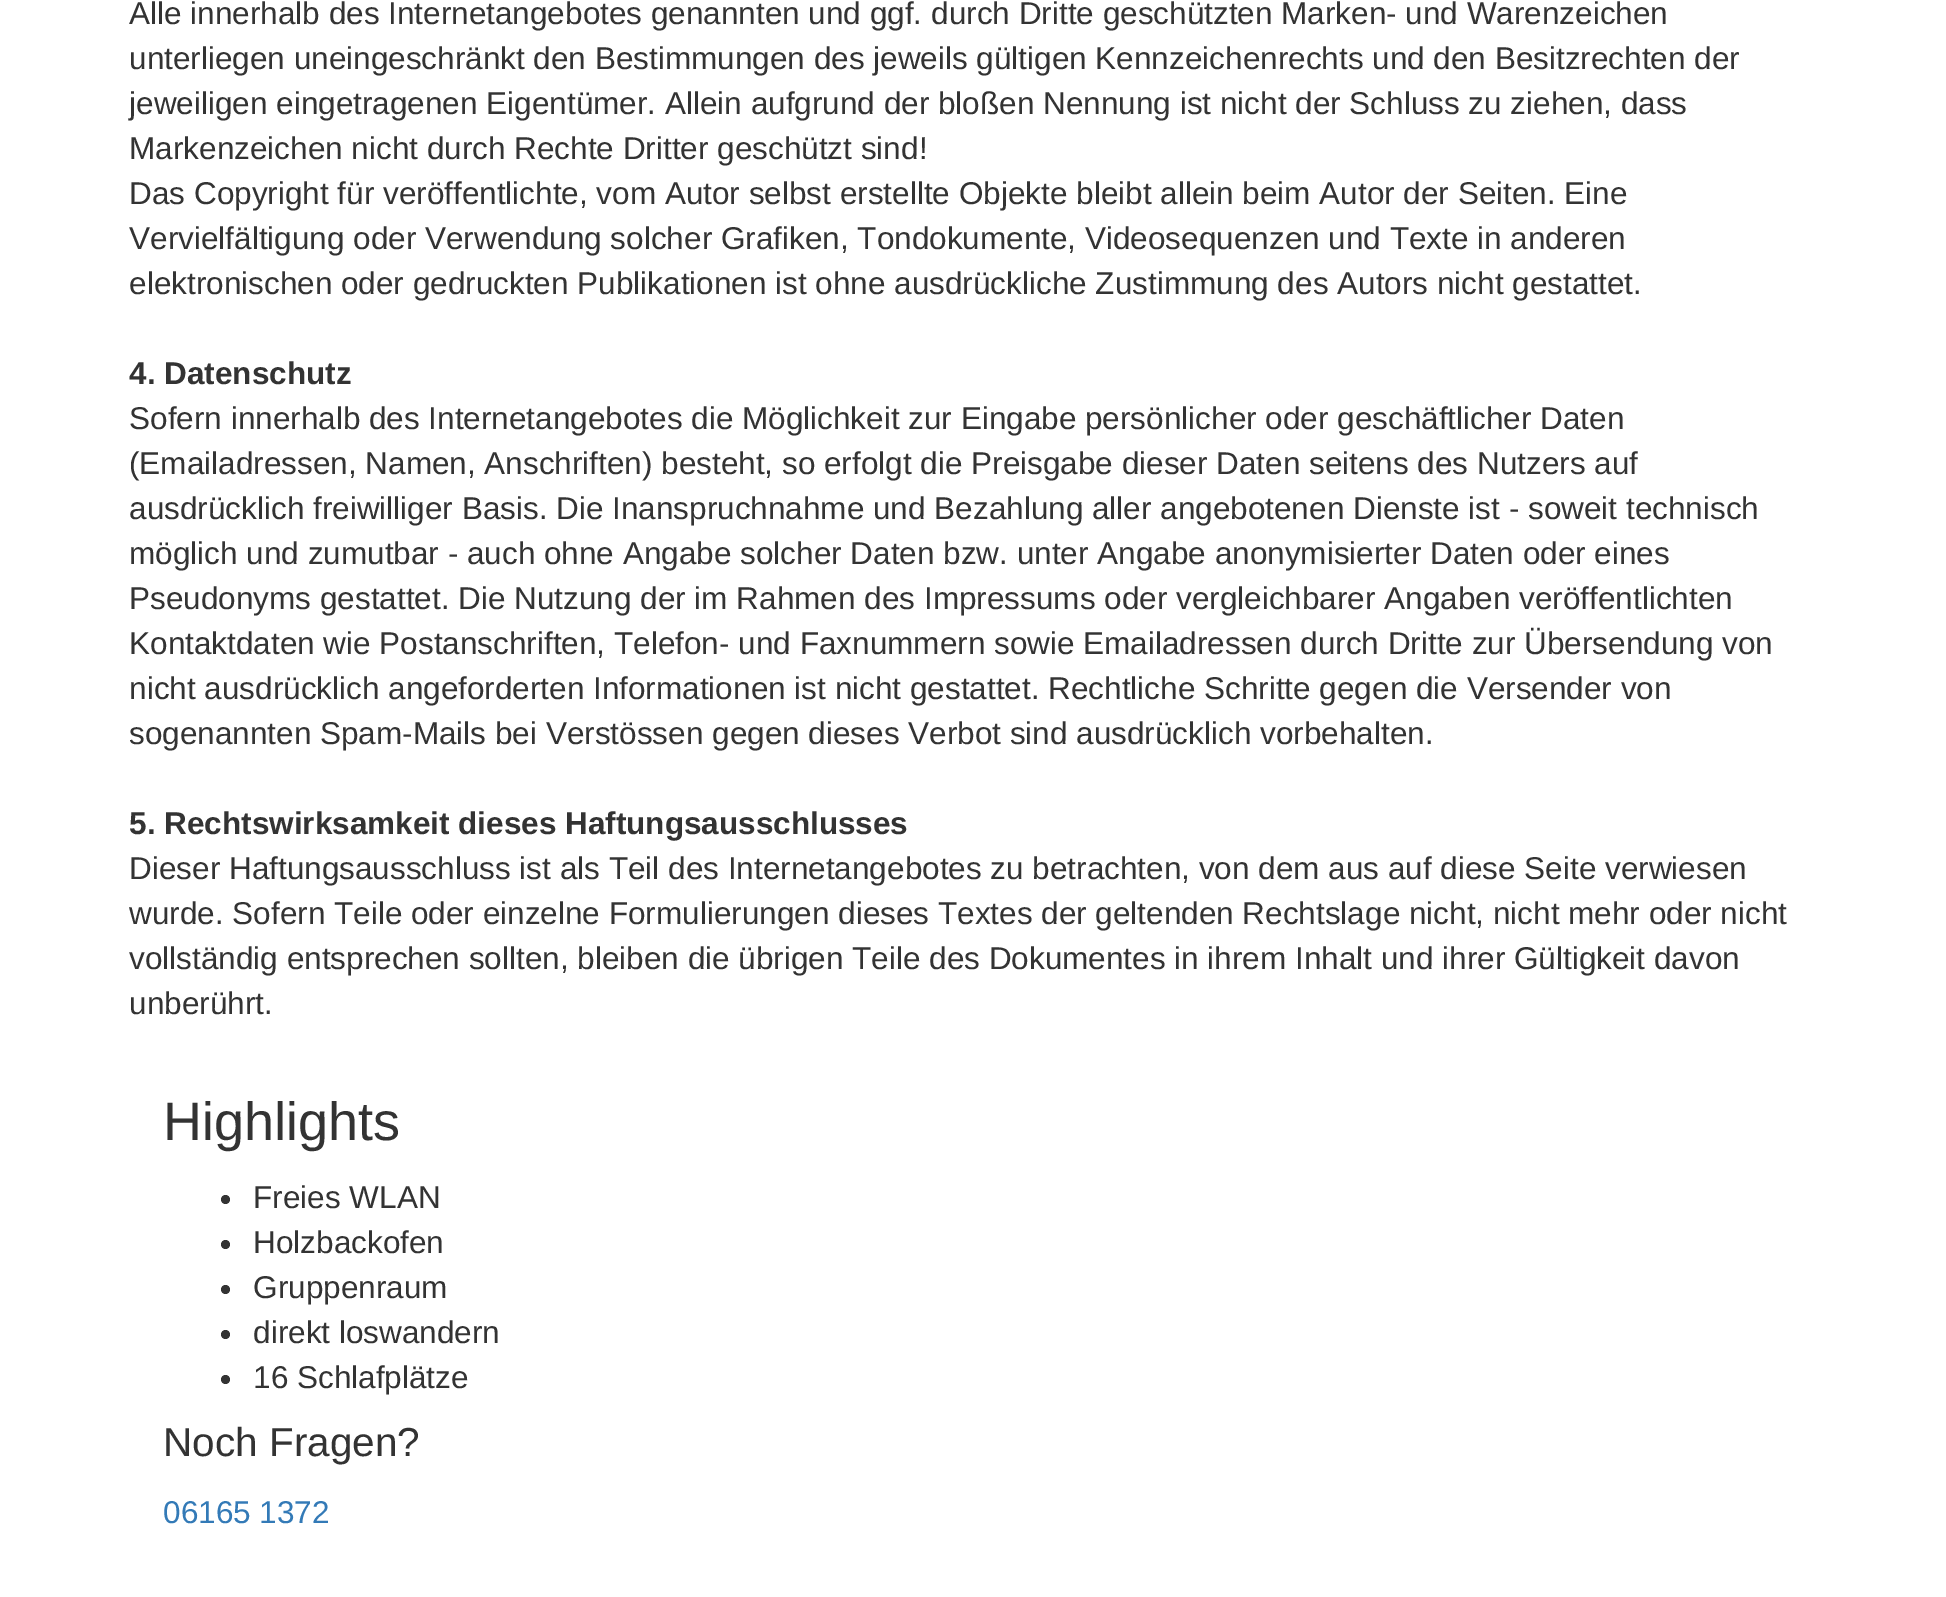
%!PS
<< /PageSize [1946 1597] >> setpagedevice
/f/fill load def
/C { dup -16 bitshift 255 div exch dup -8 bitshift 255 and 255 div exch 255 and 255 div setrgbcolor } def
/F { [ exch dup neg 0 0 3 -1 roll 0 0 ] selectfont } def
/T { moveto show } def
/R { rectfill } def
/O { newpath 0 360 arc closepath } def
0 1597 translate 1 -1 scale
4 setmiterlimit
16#FFFFFF C
0 0 1946 1597 R
/LiberationSans-Regular 31.5 F
16#333333 C
(Alle innerhalb des Internetangebotes genannten und ggf. durch Dritte geschützten Marken- und Warenzeichen) 129 24 T
(unterliegen uneingeschränkt den Bestimmungen des jeweils gültigen Kennzeichenrechts und den Besitzrechten der) 129 69 T
(jeweiligen eingetragenen Eigentümer. Allein aufgrund der bloßen Nennung ist nicht der Schluss zu ziehen, dass) 129 114 T
(Markenzeichen nicht durch Rechte Dritter geschützt sind!) 129 159 T
(Das Copyright für veröffentlichte, vom Autor selbst erstellte Objekte bleibt allein beim Autor der Seiten. Eine) 129 204 T
(Vervielfältigung oder Verwendung solcher Grafiken, Tondokumente, Videosequenzen und Texte in anderen) 129 249 T
(elektronischen oder gedruckten Publikationen ist ohne ausdrückliche Zustimmung des Autors nicht gestattet.) 129 294 T
/LiberationSans-Bold 31.5 F
(4. Datenschutz) 129 384 T
/LiberationSans-Regular 31.5 F
(Sofern innerhalb des Internetangebotes die Möglichkeit zur Eingabe persönlicher oder geschäftlicher Daten) 129 429 T
(\(Emailadressen, Namen, Anschriften\) besteht, so erfolgt die Preisgabe dieser Daten seitens des Nutzers auf) 129 474 T
(ausdrücklich freiwilliger Basis. Die Inanspruchnahme und Bezahlung aller angebotenen Dienste ist - soweit technisch) 129 519 T
(möglich und zumutbar - auch ohne Angabe solcher Daten bzw. unter Angabe anonymisierter Daten oder eines) 129 564 T
(Pseudonyms gestattet. Die Nutzung der im Rahmen des Impressums oder vergleichbarer Angaben veröffentlichten) 129 609 T
(Kontaktdaten wie Postanschriften, Telefon- und Faxnummern sowie Emailadressen durch Dritte zur Übersendung von) 129 654 T
(nicht ausdrücklich angeforderten Informationen ist nicht gestattet. Rechtliche Schritte gegen die Versender von) 129 699 T
(sogenannten Spam-Mails bei Verstössen gegen dieses Verbot sind ausdrücklich vorbehalten.) 129 744 T
/LiberationSans-Bold 31.5 F
(5. Rechtswirksamkeit dieses Haftungsausschlusses) 129 834 T
/LiberationSans-Regular 31.5 F
(Dieser Haftungsausschluss ist als Teil des Internetangebotes zu betrachten, von dem aus auf diese Seite verwiesen) 129 879 T
(wurde. Sofern Teile oder einzelne Formulierungen dieses Textes der geltenden Rechtslage nicht, nicht mehr oder nicht) 129 924 T
(vollständig entsprechen sollten, bleiben die übrigen Teile des Dokumentes in ihrem Inhalt und ihrer Gültigkeit davon) 129 969 T
(unberührt.) 129 1014 T
/LiberationSans-Regular 54 F
(Highlights) 163 1140 T
225.5 1199.5 4.5 O f
/LiberationSans-Regular 31.5 F
(Freies WLAN) 253 1208 T
225.5 1244.5 4.5 O f
(Holzbackofen) 253 1253 T
225.5 1289.5 4.5 O f
(Gruppenraum) 253 1298 T
225.5 1334.5 4.5 O f
(direkt loswandern) 253 1343 T
225.5 1379.5 4.5 O f
(16 Schlafplätze) 253 1388 T
/LiberationSans-Regular 40.5 F
(Noch Fragen?) 163 1456 T
/LiberationSans-Regular 31.5 F
16#337AB7 C
(06165 1372) 163 1523 T
showpage
